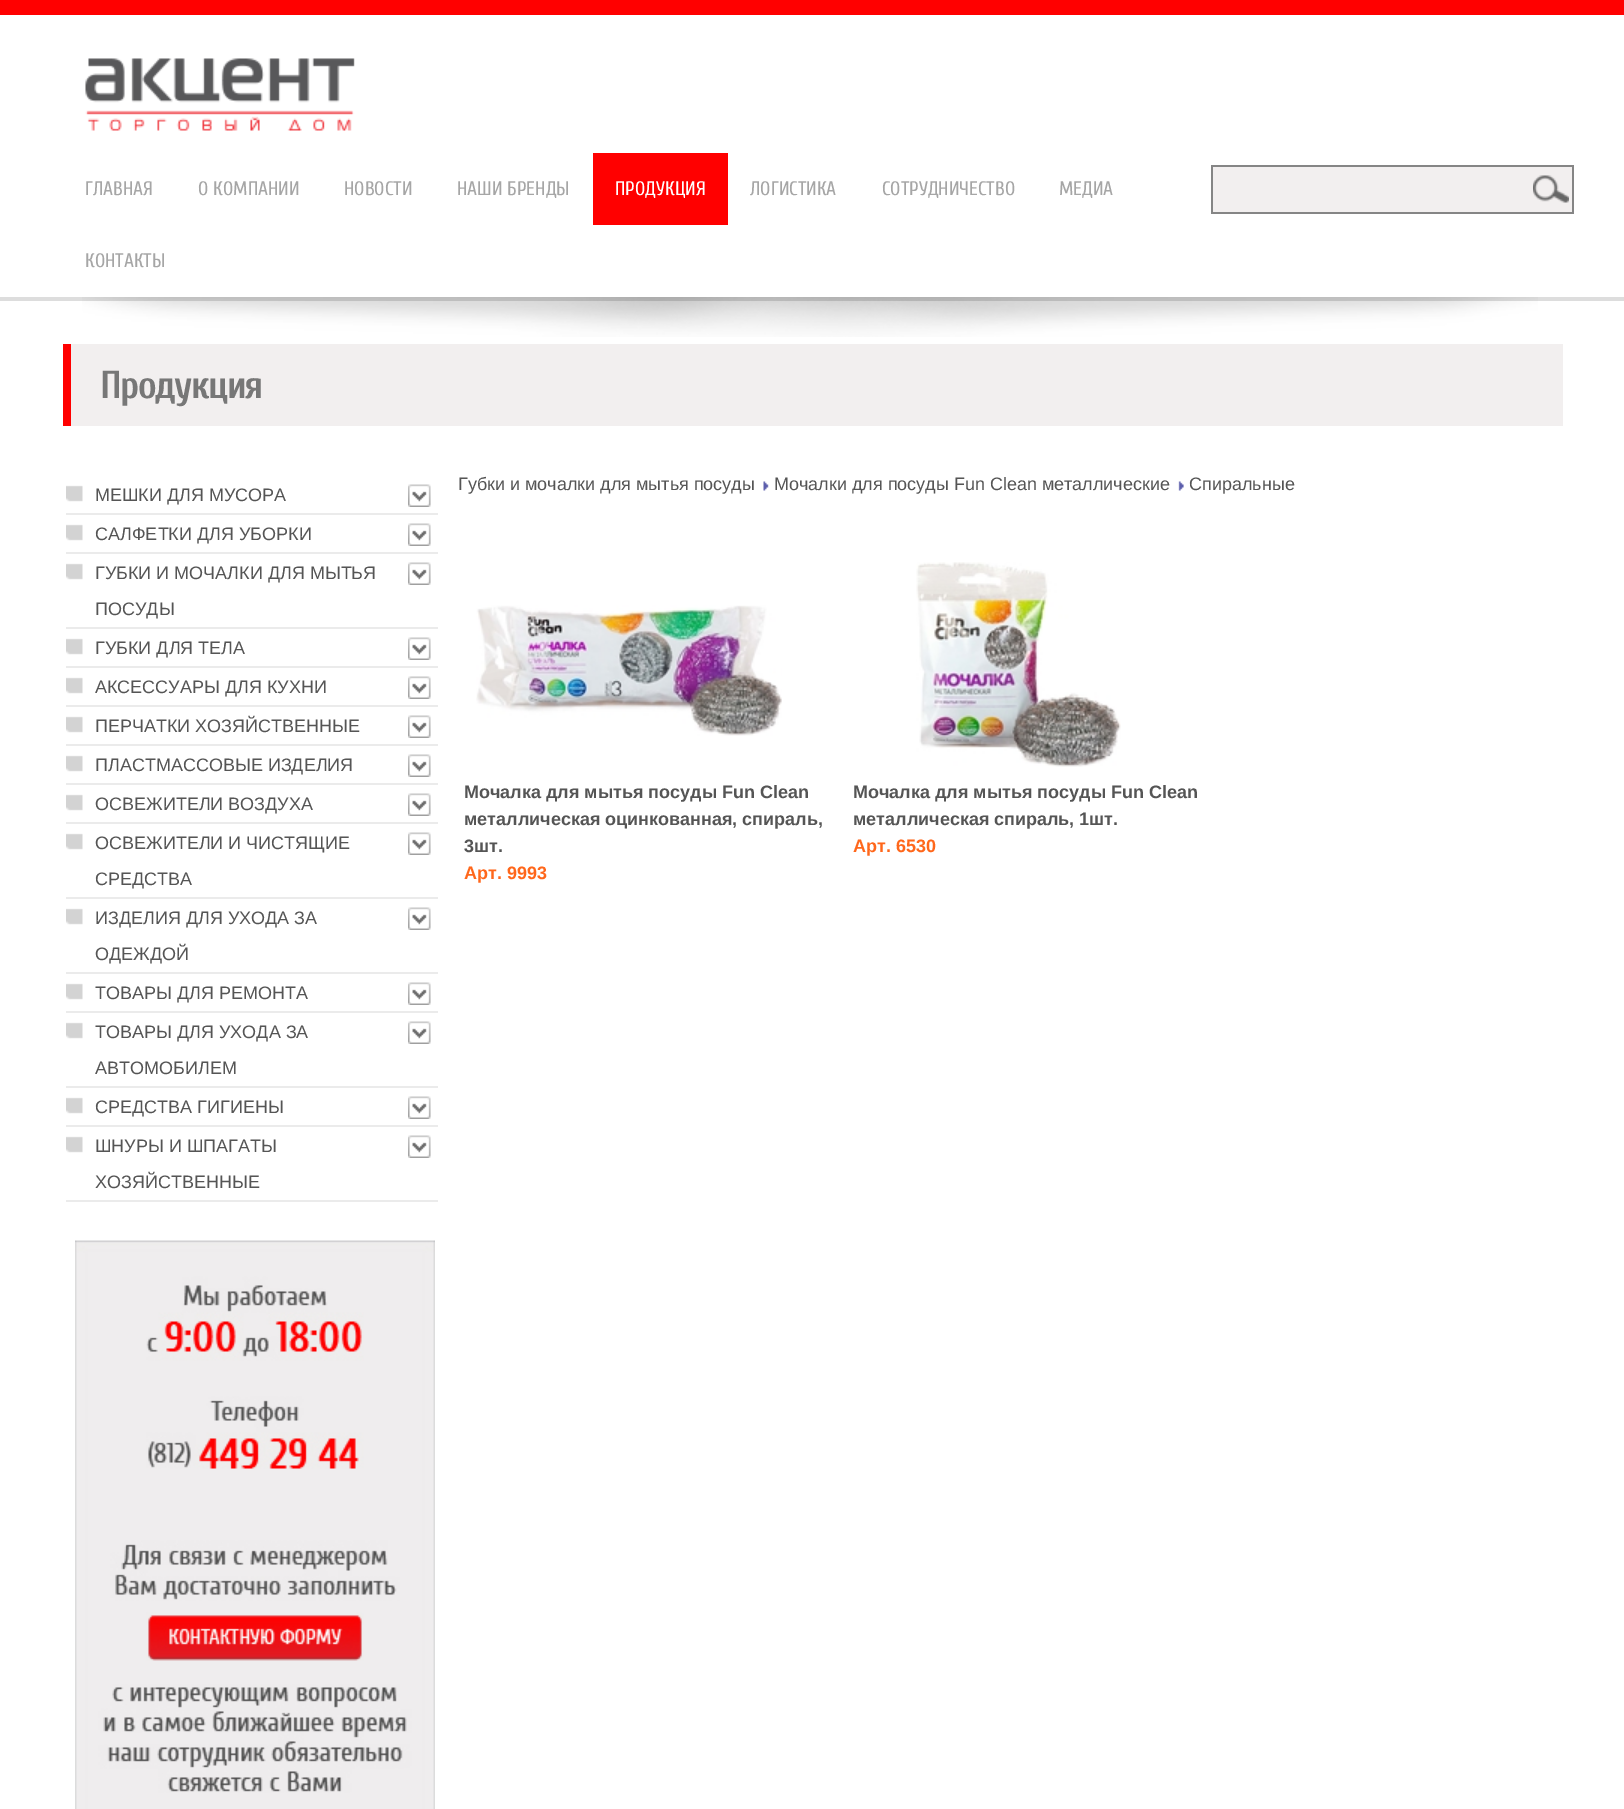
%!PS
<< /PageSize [1624 1809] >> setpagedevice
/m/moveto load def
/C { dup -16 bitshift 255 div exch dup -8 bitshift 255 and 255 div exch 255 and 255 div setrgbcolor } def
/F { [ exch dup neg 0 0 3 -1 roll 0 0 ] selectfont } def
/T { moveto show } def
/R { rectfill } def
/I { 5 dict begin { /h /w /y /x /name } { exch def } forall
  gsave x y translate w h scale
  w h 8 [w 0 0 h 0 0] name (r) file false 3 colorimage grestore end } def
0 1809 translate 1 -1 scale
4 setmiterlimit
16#FFFFFF C
0 0 1624 1809 R
16#FF0000 C
0 0 1624 15 R
16#DDDDDD C
0 297 1624 4 R
(1.rgb) 85 58 270 73 I
/Cuprum-Regular 19.5 F
16#A6A6A6 C
(ГЛАВНАЯ) 85 195 T
(О КОМПАНИИ) 198 195 T
(НОВОСТИ) 344 195 T
(НАШИ БРЕНДЫ) 457 195 T
16#FF0000 C
593 153 135 72 R
16#FFFFFF C
(ПРОДУКЦИЯ) 615 195 T
16#A6A6A6 C
(ЛОГИСТИКА) 750 195 T
(СОТРУДНИЧЕСТВО) 882 195 T
(МЕДИА) 1059 195 T
(КОНТАКТЫ) 85 267 T
16#F2EFEF C
1213 167 359 45 R
16#858585 C
1211 165 363 2 R
1572 165 2 48 R
1211 212 363 2 R
(2.rgb) 1533 175 36 28 I
1211 165 2 48 R
(3.rgb) 82 297 1456 40 I
16#F2EFEF C
71 344 1492 82 R
16#FF0000 C
63 344 8 82 R
/Cuprum-Bold 39 F
16#777777 C
100 398 m -1.5 0 (Продукция) ashow
(4.rgb) 66 485 17 17 I
16#EBEBEB C
66 513 372 2 R
/LiberationSans-Regular 18 F
16#555555 C
(МЕШКИ ДЛЯ МУСОРА) 95 501 T
(5.rgb) 408 484 23 23 I
(4.rgb) 66 524 17 17 I
16#EBEBEB C
66 552 372 2 R
16#555555 C
(САЛФЕТКИ ДЛЯ УБОРКИ) 95 540 T
(5.rgb) 408 523 23 23 I
(4.rgb) 66 563 17 17 I
16#EBEBEB C
66 627 372 2 R
16#555555 C
(ГУБКИ И МОЧАЛКИ ДЛЯ МЫТЬЯ) 95 579 T
(ПОСУДЫ) 95 615 T
(5.rgb) 408 562 23 23 I
(4.rgb) 66 638 17 17 I
16#EBEBEB C
66 666 372 2 R
16#555555 C
(ГУБКИ ДЛЯ ТЕЛА) 95 654 T
(5.rgb) 408 637 23 23 I
(4.rgb) 66 677 17 17 I
16#EBEBEB C
66 705 372 2 R
16#555555 C
(АКСЕССУАРЫ ДЛЯ КУХНИ) 95 693 T
(5.rgb) 408 676 23 23 I
(4.rgb) 66 716 17 17 I
16#EBEBEB C
66 744 372 2 R
16#555555 C
(ПЕРЧАТКИ ХОЗЯЙСТВЕННЫЕ) 95 732 T
(5.rgb) 408 715 23 23 I
(4.rgb) 66 755 17 17 I
16#EBEBEB C
66 783 372 2 R
16#555555 C
(ПЛАСТМАССОВЫЕ ИЗДЕЛИЯ) 95 771 T
(5.rgb) 408 754 23 23 I
(4.rgb) 66 794 17 17 I
16#EBEBEB C
66 822 372 2 R
16#555555 C
(ОСВЕЖИТЕЛИ ВОЗДУХА) 95 810 T
(5.rgb) 408 793 23 23 I
(4.rgb) 66 833 17 17 I
16#EBEBEB C
66 897 372 2 R
16#555555 C
(ОСВЕЖИТЕЛИ И ЧИСТЯЩИЕ) 95 849 T
(СРЕДСТВА) 95 885 T
(5.rgb) 408 832 23 23 I
(4.rgb) 66 908 17 17 I
16#EBEBEB C
66 972 372 2 R
16#555555 C
(ИЗДЕЛИЯ ДЛЯ УХОДА ЗА) 95 924 T
(ОДЕЖДОЙ) 95 960 T
(5.rgb) 408 907 23 23 I
(4.rgb) 66 983 17 17 I
16#EBEBEB C
66 1011 372 2 R
16#555555 C
(ТОВАРЫ ДЛЯ РЕМОНТА) 95 999 T
(5.rgb) 408 982 23 23 I
(4.rgb) 66 1022 17 17 I
16#EBEBEB C
66 1086 372 2 R
16#555555 C
(ТОВАРЫ ДЛЯ УХОДА ЗА) 95 1038 T
(АВТОМОБИЛЕМ) 95 1074 T
(5.rgb) 408 1021 23 23 I
(4.rgb) 66 1097 17 17 I
16#EBEBEB C
66 1125 372 2 R
16#555555 C
(СРЕДСТВА ГИГИЕНЫ) 95 1113 T
(5.rgb) 408 1096 23 23 I
(4.rgb) 66 1136 17 17 I
16#EBEBEB C
66 1200 372 2 R
16#555555 C
(ШНУРЫ И ШПАГАТЫ) 95 1152 T
(ХОЗЯЙСТВЕННЫЕ) 95 1188 T
(5.rgb) 408 1135 23 23 I
(6.rgb) 75 1240 360 569 I
(Губки и мочалки для мытья посуды) 458 490 T
(7.rgb) 763 481 6 10 I
(Мочалки для посуды Fun Clean металлические) 774 490 T
(8.rgb) 1178 481 6 10 I
(Cпиральные) 1189 490 T
(9.rgb) 476 605 306 131 I
/LiberationSans-Bold 18 F
(Мочалка для мытья посуды Fun Clean) 464 798 T
(металлическая оцинкованная, спираль,) 464 825 T
(3шт.) 464 852 T
16#FF671B C
(Арт. 9993) 464 879 T
(10.rgb) 916 562 205 205 I
16#555555 C
(Мочалка для мытья посуды Fun Clean) 853 798 T
(металлическая спираль, 1шт.) 853 825 T
16#FF671B C
(Арт. 6530) 853 852 T
showpage
